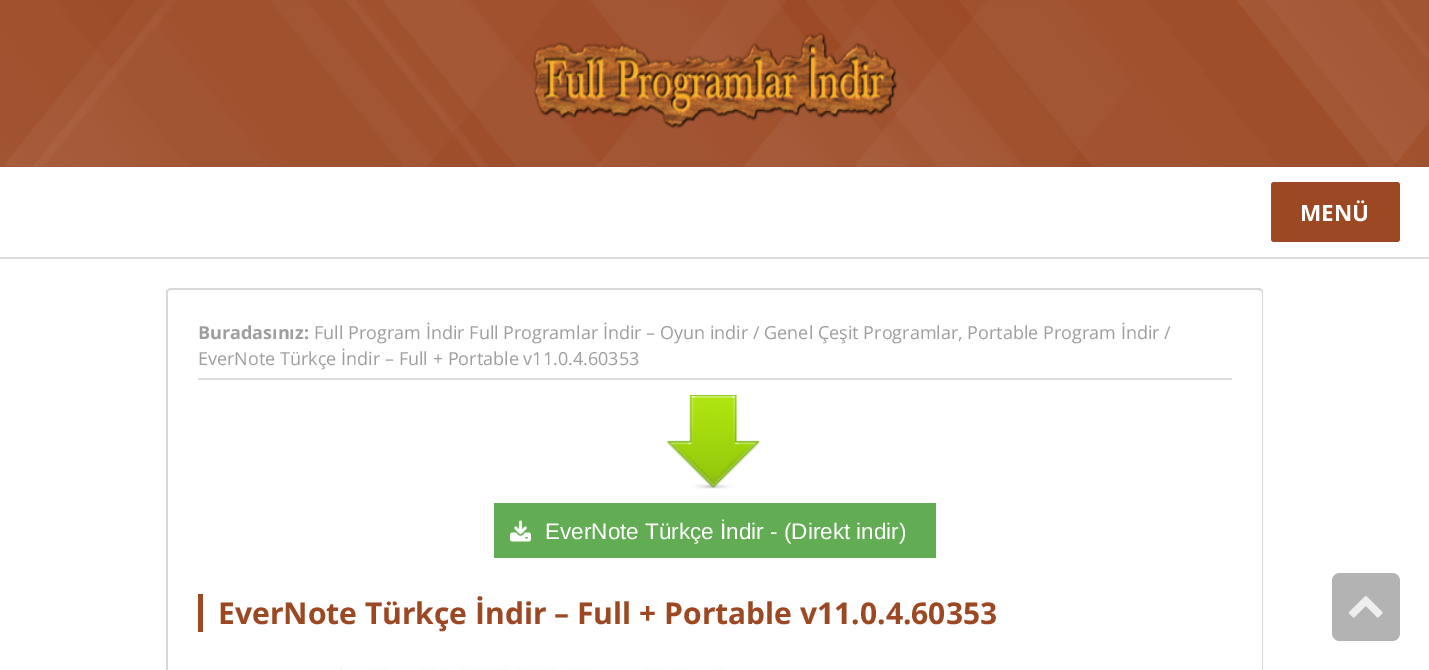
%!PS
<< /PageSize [1429 670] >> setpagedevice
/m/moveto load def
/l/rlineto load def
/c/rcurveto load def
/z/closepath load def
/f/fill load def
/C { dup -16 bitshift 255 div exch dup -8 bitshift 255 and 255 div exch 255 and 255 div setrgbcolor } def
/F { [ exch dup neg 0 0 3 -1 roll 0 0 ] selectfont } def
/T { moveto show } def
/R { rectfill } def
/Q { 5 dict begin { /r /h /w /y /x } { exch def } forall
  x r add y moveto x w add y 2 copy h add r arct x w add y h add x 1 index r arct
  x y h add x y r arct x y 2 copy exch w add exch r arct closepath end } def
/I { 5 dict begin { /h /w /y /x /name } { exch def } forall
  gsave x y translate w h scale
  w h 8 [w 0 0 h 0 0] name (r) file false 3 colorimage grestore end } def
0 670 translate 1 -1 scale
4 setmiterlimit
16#9B4823 C
0 0 1429 670 R
(1.rgb) 0 0 1429 167 I
(2.rgb) 533 32 365 97 I
16#FFFFFF C
0 167 1429 90 R
16#DDDDDD C
0 257 1429 2 R
16#9B4823 C
1271 182 129 60 3 Q f
/OpenSans-Bold 22.5 F
16#FFFFFF C
(MENÜ) 1300 221 T
0 259 1429 411 R
16#D8D8D8 C
171 288 m 1087 0 l 3 0 5 2 5 4 c 0 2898 l -1097 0 l 0 -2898 l 0 -2 3 -4 5 -4 c z 171 290 m 1087 0 l 2 0 4 1 4 2 c 0 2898 l -1094 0 l 0 -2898 l 0 -1 1 -2 3 -2 c z eofill
16#DDDDDD C
198 378 1034 2 R
/OpenSans-Bold 18 F
16#9E9E9E C
(Buradasınız:) 198 339 T
/OpenSans-Regular 18 F
(Full Program İndir Full Programlar İndir – Oyun indir / Genel Çeşit Programlar, Portable Program İndir /) 314 339 T
(EverNote Türkçe İndir – Full + Portable v11.0.4.60353) 198 365 T
(3.rgb) 667 395 93 94 I
16#62AD54 C
494 503 442 55 R
(4.rgb) 510 520 21 22 I
/LiberationSans-Regular 22.5 F
16#FFFFFF C
(EverNote Türkçe İndir - \(Direkt indir\)) 545 539 T
16#9B4823 C
198 594 5 38 R
/OpenSans-Bold 30 F
(EverNote Türkçe İndir – Full + Portable v11.0.4.60353) 218 624 T
(5.rgb) 340 669 383 1 I
16#B3B3B3 C
1332 573 68 68 8 Q f
(6.rgb) 1349 596 34 22 I
showpage
